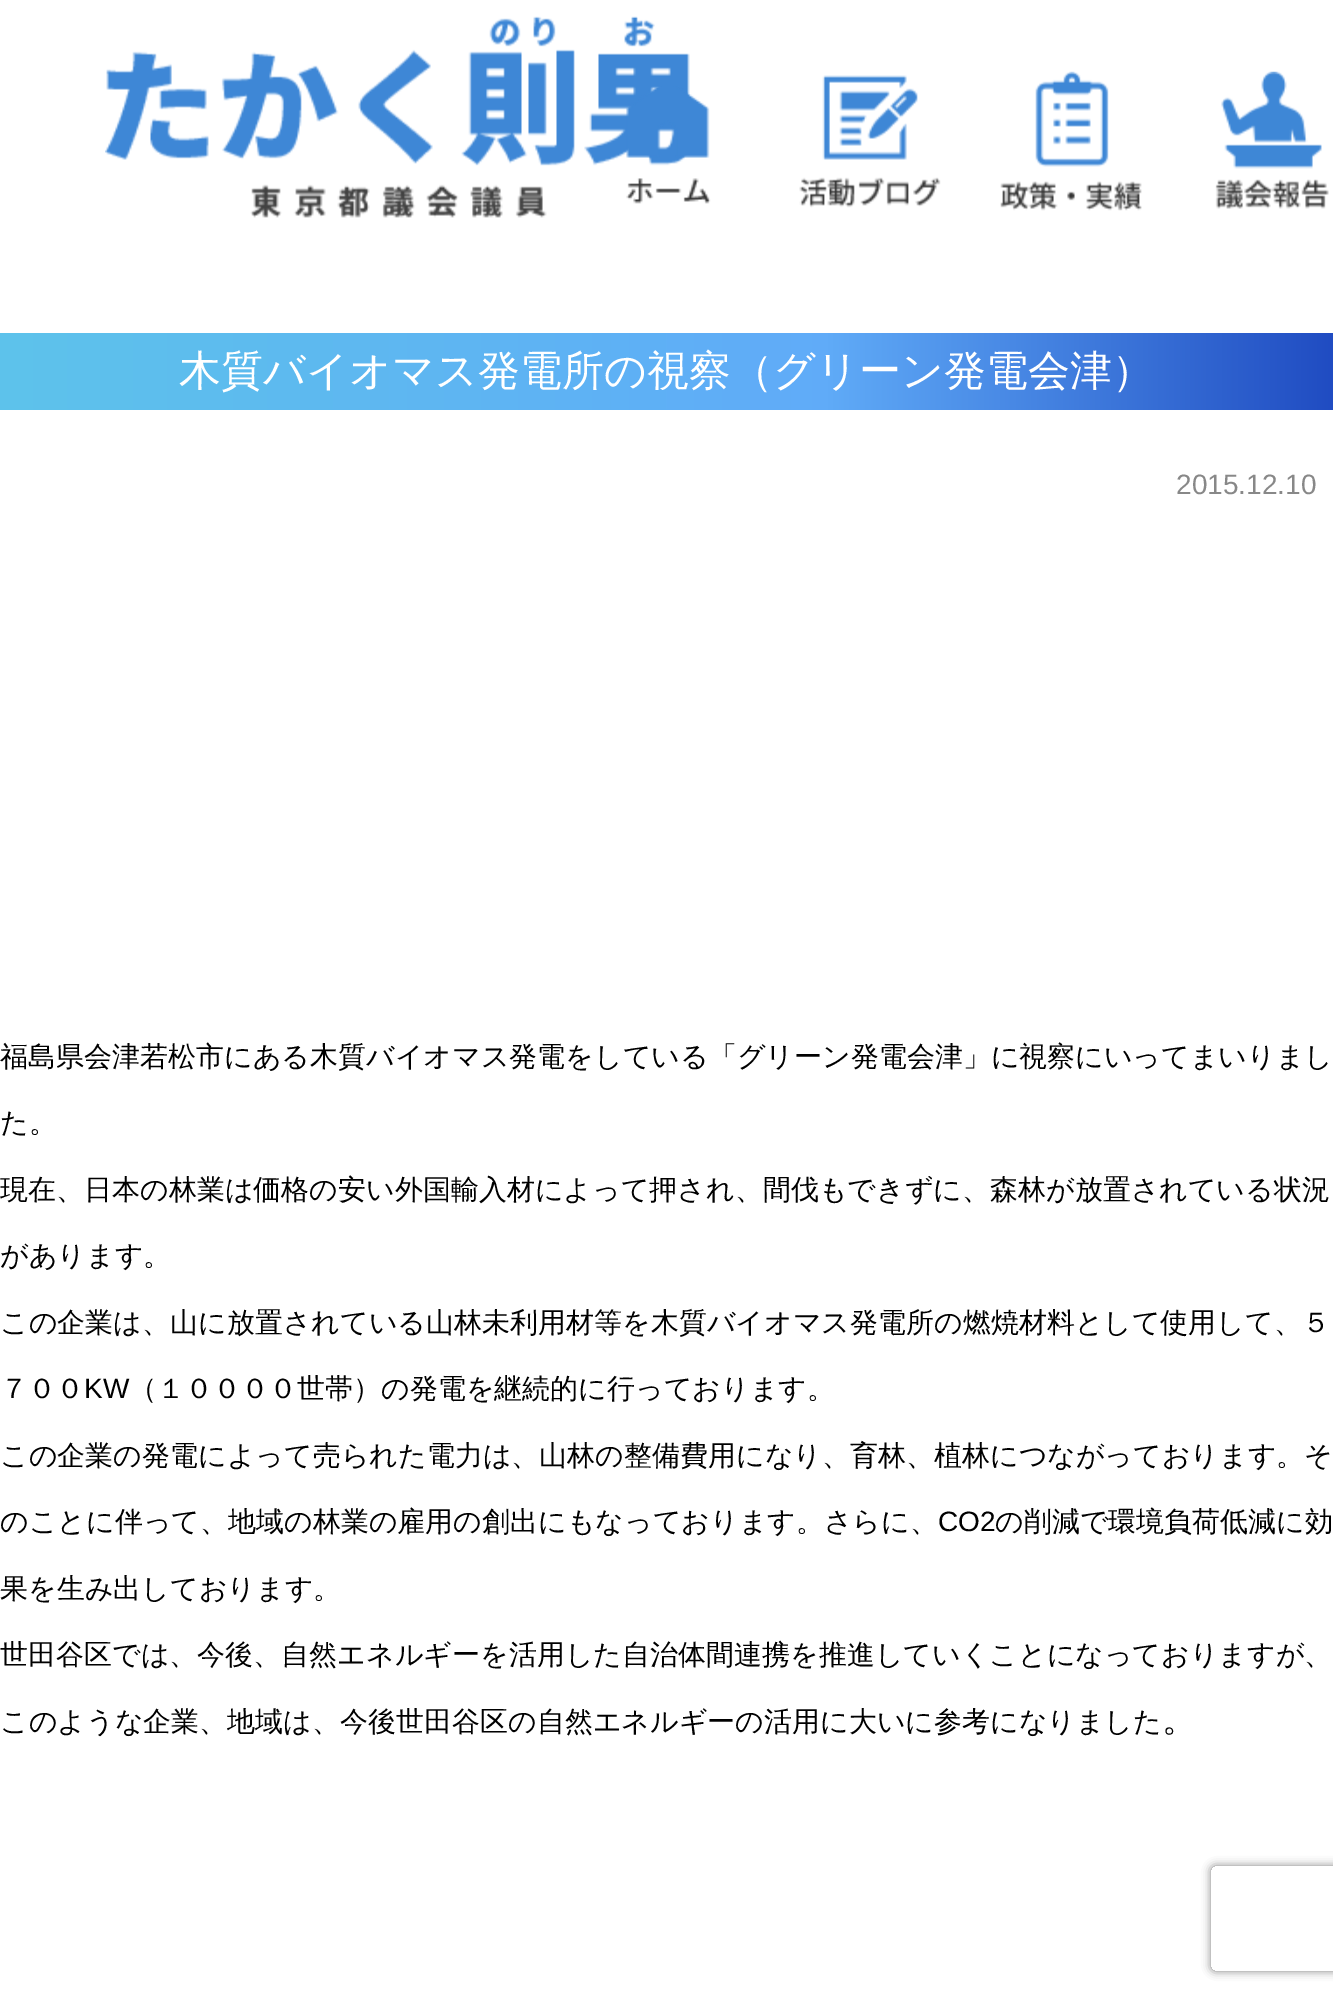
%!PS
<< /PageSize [1333 1994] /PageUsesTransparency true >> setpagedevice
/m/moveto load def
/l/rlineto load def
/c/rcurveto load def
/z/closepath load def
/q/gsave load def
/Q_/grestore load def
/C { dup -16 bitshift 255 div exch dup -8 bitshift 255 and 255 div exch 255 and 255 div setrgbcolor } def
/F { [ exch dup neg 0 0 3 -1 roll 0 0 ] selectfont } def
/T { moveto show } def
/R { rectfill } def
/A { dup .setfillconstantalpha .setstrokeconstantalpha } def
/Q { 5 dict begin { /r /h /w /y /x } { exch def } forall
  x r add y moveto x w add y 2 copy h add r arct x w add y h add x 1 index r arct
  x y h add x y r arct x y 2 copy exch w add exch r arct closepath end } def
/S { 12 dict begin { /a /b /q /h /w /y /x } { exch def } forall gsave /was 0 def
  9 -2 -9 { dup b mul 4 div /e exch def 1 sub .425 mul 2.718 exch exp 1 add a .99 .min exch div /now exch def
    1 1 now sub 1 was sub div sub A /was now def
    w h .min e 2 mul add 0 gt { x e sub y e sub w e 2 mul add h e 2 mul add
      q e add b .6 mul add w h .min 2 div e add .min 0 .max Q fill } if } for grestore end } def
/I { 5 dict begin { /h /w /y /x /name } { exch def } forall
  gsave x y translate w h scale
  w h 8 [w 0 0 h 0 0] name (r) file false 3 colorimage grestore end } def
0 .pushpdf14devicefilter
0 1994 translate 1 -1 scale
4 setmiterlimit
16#FFFFFF C
0 0 1333 1994 R
(1.rgb) 105 16 585 202 I
(2.rgb) 626 86 85 118 I
(3.rgb) 799 75 142 133 I
(4.rgb) 1000 71 142 140 I
(5.rgb) 1215 71 114 138 I
q 0 333 m 1333 0 l 0 77 l -1333 0 l z clip newpath
<< /ShadingType 2 /ColorSpace /DeviceRGB /Coords [0 371 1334 371] /Extend [true true] /Function << /FunctionType 3 /Domain [0 1] /Functions [<< /FunctionType 2 /Domain [0 1] /C0 [.365 .765 .922] /C1 [.376 .671 .973] /N 1 >> << /FunctionType 2 /Domain [0 1] /C0 [.376 .671 .973] /C1 [.125 .298 .761] /N 1 >>] /Bounds [.62] /Encode [0 1 0 1] >> >> shfill Q_
/WenQuanYiZenHei-Medium 42 F
(木質バイオマス発電所の視察（グリーン発電会津）) 179 385 T
/LiberationSans-Regular 28 F
16#888888 C
(2015.12.10) 1176 494 T
/WenQuanYiZenHei-Medium 28 F
16#000000 C
(福島県会津若松市にある木質バイオマス発電をしている「グリーン発電会津」に視察にいってまいりまし) 0 1066 T
(た。) 0 1132 T
(現在、日本の林業は価格の安い外国輸入材によって押され、間伐もできずに、森林が放置されている状況) 0 1199 T
(があります。) 0 1265 T
(この企業は、山に放置されている山林未利用材等を木質バイオマス発電所の燃焼材料として使用して、５) 0 1332 T
(７００) 0 1398 T
/LiberationSans-Regular 28 F
(KW) 84 1398 T
/WenQuanYiZenHei-Medium 28 F
(（１００００世帯）の発電を継続的に行っております。) 129 1398 T
(この企業の発電によって売られた電力は、山林の整備費用になり、育林、植林につながっております。そ) 0 1465 T
(のことに伴って、地域の林業の雇用の創出にもなっております。さらに、) 0 1531 T
/LiberationSans-Regular 28 F
(CO2) 938 1531 T
/WenQuanYiZenHei-Medium 28 F
(の削減で環境負荷低減に効) 995 1531 T
(果を生み出しております。) 0 1598 T
(世田谷区では、今後、自然エネルギーを活用した自治体間連携を推進していくことになっておりますが、) 0 1664 T
(このような企業、地域は、今後世田谷区の自然エネルギーの活用に大いに参考になりました) 0 1731 T
/WenQuanYiZenHei-Medium 35 F
(。) 1162 1731 T
q
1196 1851 m 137 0 l 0 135 l -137 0 l z 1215 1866 m 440 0 l 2 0 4 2 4 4 c 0 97 l 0 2 -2 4 -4 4 c -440 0 l -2 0 -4 -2 -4 -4 c 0 -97 l 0 -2 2 -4 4 -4 c z eoclip newpath
16#808080 C
1211 1866 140 105 4 4.5 1 S
Q_
.poppdf14devicefilter showpage
